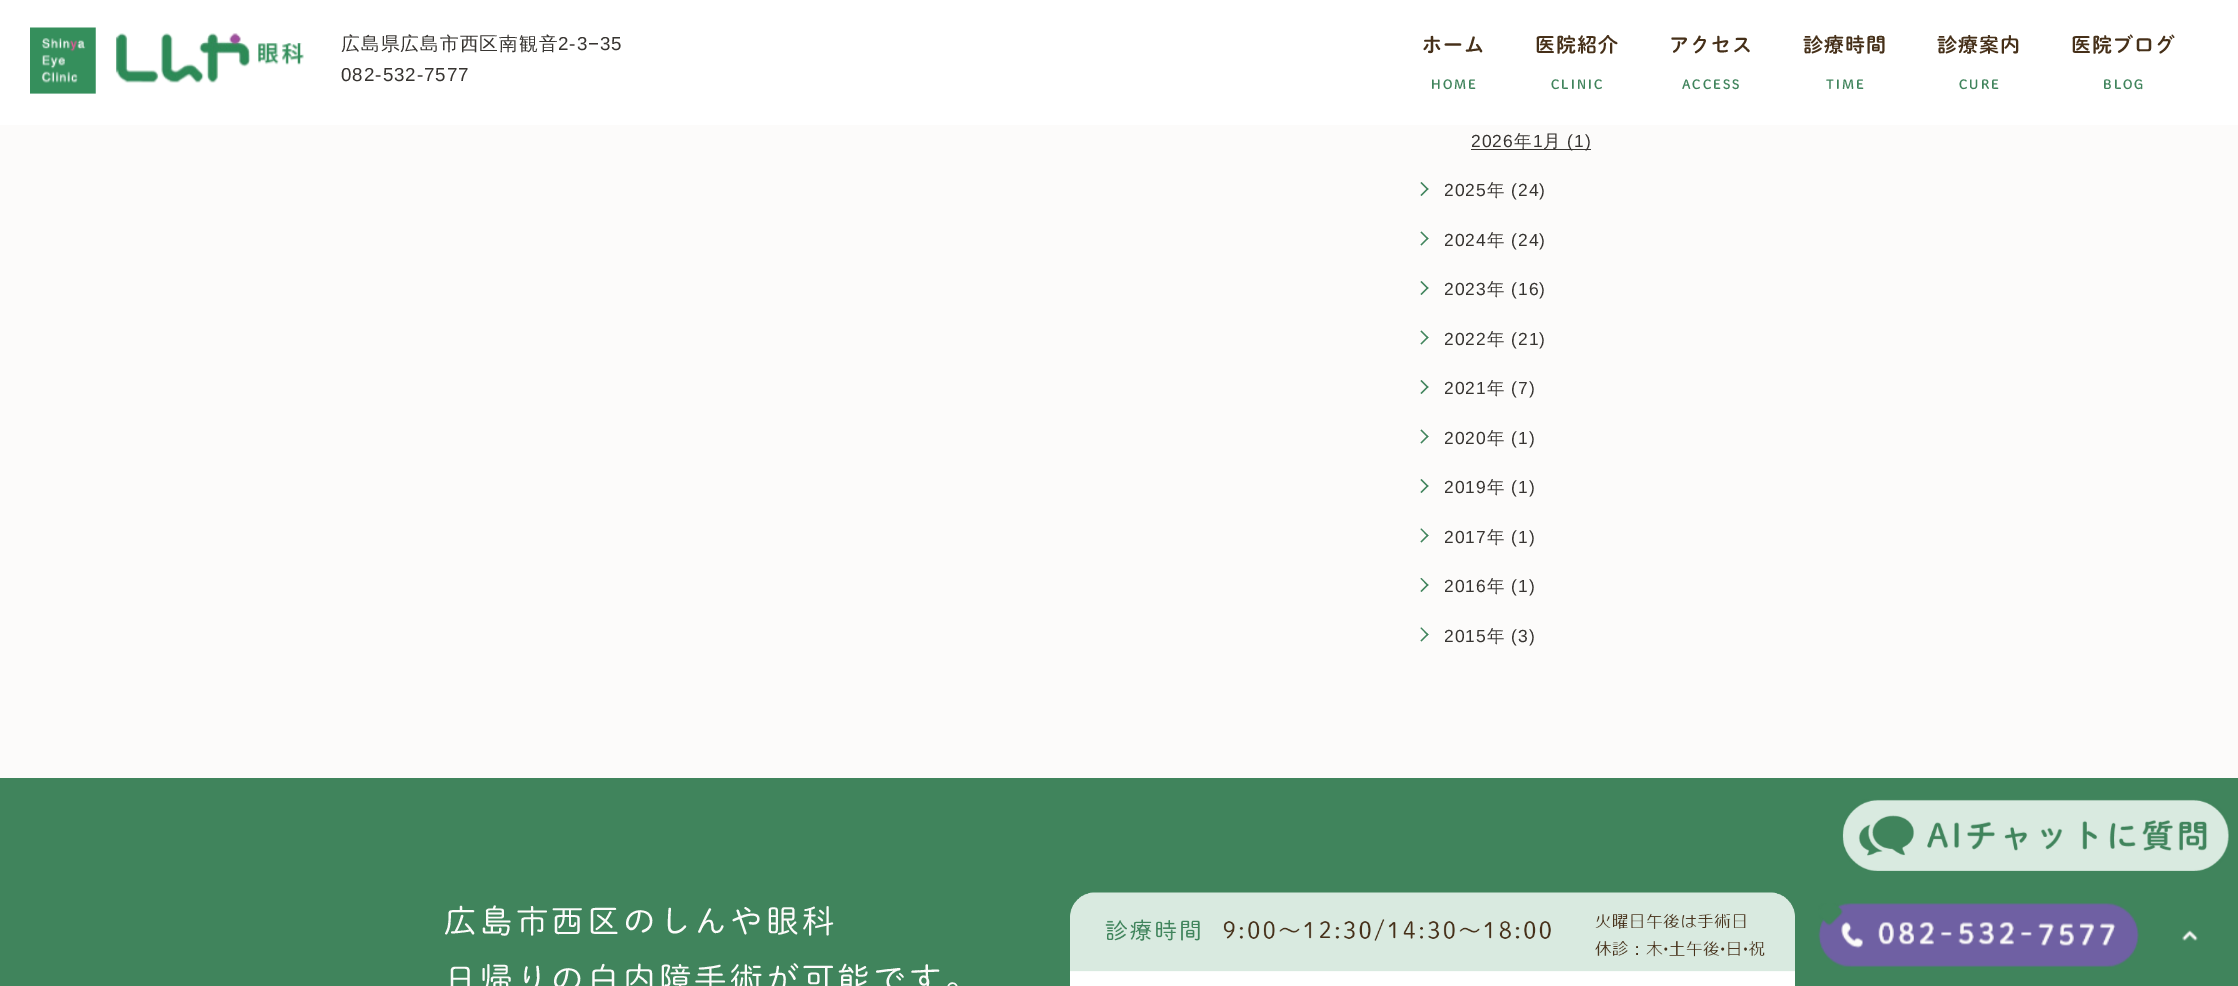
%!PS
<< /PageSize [2238 986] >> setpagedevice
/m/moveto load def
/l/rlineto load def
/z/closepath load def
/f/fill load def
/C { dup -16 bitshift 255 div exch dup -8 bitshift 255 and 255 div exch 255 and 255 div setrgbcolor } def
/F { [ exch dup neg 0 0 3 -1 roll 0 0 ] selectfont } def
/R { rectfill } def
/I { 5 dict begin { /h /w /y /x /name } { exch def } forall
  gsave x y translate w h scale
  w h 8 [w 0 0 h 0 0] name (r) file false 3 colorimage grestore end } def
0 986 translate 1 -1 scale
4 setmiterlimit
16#FCFBFA C
0 0 2238 986 R
16#FFFFFF C
0 0 2238 125 R
(1.rgb) 30 27 274 67 I
/WenQuanYiZenHei-Medium 18.75 F
16#373431 C
341 50 m 1 0 (広島県広島市西区南観音) ashow
/LiberationSans-Regular 18.75 F
558 50 m 1 0 (2-3−35) ashow
341 81 m 1 0 (082-532-7577) ashow
/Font-SemiBold 20 F
16#463019 C
1422 52 m 1 0 (ホーム) ashow
/Font-SemiBold 12.5 F
16#40845C C
1431 89 m 2 0 (HOME) ashow
/Font-SemiBold 20 F
16#463019 C
1535 52 m 1 0 (医院紹介) ashow
/Font-SemiBold 12.5 F
16#40845C C
1551 89 m 2 0 (CLINIC) ashow
/Font-SemiBold 20 F
16#463019 C
1669 52 m 1 0 (アクセス) ashow
/Font-SemiBold 12.5 F
16#40845C C
1682 89 m 2 0 (ACCESS) ashow
/Font-SemiBold 20 F
16#463019 C
1803 52 m 1 0 (診療時間) ashow
/Font-SemiBold 12.5 F
16#40845C C
1826 89 m 2 0 (TIME) ashow
/Font-SemiBold 20 F
16#463019 C
1937 52 m 1 0 (診療案内) ashow
/Font-SemiBold 12.5 F
16#40845C C
1959 89 m 2 0 (CURE) ashow
/Font-SemiBold 20 F
16#463019 C
2071 52 m 1 0 (医院ブログ) ashow
/Font-SemiBold 12.5 F
16#40845C C
2103 89 m 2 0 (BLOG) ashow
/LiberationSans-Regular 17.5 F
16#373431 C
1471 147 m 1 0 (2026) ashow
1471 149 120 1 R
/WenQuanYiZenHei-Medium 17.5 F
1514 147 m 1 0 (年) ashow
/LiberationSans-Regular 17.5 F
1533 147 m 1 0 (1) ashow
/WenQuanYiZenHei-Medium 17.5 F
1543 147 m 1 0 (月) ashow
/LiberationSans-Regular 17.5 F
1567 147 m 1 0 (\(1\)) ashow
16#40845C C
1420.5 183 m 1 -1 l 7 7 l -1 1 l z f
1420.5 195 m 7 -7 l 1 1 l -7 7 l z f
16#373431 C
1444 196 m 1 0 (2025) ashow
/WenQuanYiZenHei-Medium 17.5 F
1487 196 m 1 0 (年) ashow
/LiberationSans-Regular 17.5 F
1511 196 m 1 0 (\(24\)) ashow
16#40845C C
1420.5 232.5 m 1 -1 l 7 7 l -1 1 l z f
1420.5 244.5 m 7 -7 l 1 1 l -7 7 l z f
16#373431 C
1444 246 m 1 0 (2024) ashow
/WenQuanYiZenHei-Medium 17.5 F
1487 246 m 1 0 (年) ashow
/LiberationSans-Regular 17.5 F
1511 246 m 1 0 (\(24\)) ashow
16#40845C C
1420.5 282 m 1 -1 l 7 7 l -1 1 l z f
1420.5 294 m 7 -7 l 1 1 l -7 7 l z f
16#373431 C
1444 295 m 1 0 (2023) ashow
/WenQuanYiZenHei-Medium 17.5 F
1487 295 m 1 0 (年) ashow
/LiberationSans-Regular 17.5 F
1511 295 m 1 0 (\(16\)) ashow
16#40845C C
1420.5 331.5 m 1 -1 l 7 7 l -1 1 l z f
1420.5 343.5 m 7 -7 l 1 1 l -7 7 l z f
16#373431 C
1444 345 m 1 0 (2022) ashow
/WenQuanYiZenHei-Medium 17.5 F
1487 345 m 1 0 (年) ashow
/LiberationSans-Regular 17.5 F
1511 345 m 1 0 (\(21\)) ashow
16#40845C C
1420.5 381 m 1 -1 l 7 7 l -1 1 l z f
1420.5 393 m 7 -7 l 1 1 l -7 7 l z f
16#373431 C
1444 394 m 1 0 (2021) ashow
/WenQuanYiZenHei-Medium 17.5 F
1487 394 m 1 0 (年) ashow
/LiberationSans-Regular 17.5 F
1511 394 m 1 0 (\(7\)) ashow
16#40845C C
1420.5 430.5 m 1 -1 l 7 7 l -1 1 l z f
1420.5 442.5 m 7 -7 l 1 1 l -7 7 l z f
16#373431 C
1444 444 m 1 0 (2020) ashow
/WenQuanYiZenHei-Medium 17.5 F
1487 444 m 1 0 (年) ashow
/LiberationSans-Regular 17.5 F
1511 444 m 1 0 (\(1\)) ashow
16#40845C C
1420.5 480 m 1 -1 l 7 7 l -1 1 l z f
1420.5 492 m 7 -7 l 1 1 l -7 7 l z f
16#373431 C
1444 493 m 1 0 (2019) ashow
/WenQuanYiZenHei-Medium 17.5 F
1487 493 m 1 0 (年) ashow
/LiberationSans-Regular 17.5 F
1511 493 m 1 0 (\(1\)) ashow
16#40845C C
1420.5 529 m 1 -.5 l 7 7 l -1 1 l z f
1420.5 541.5 m 7 -7 l 1 1 l -7 7 l z f
16#373431 C
1444 543 m 1 0 (2017) ashow
/WenQuanYiZenHei-Medium 17.5 F
1487 543 m 1 0 (年) ashow
/LiberationSans-Regular 17.5 F
1511 543 m 1 0 (\(1\)) ashow
16#40845C C
1420.5 578.5 m 1 -.5 l 7 7 l -1 1 l z f
1420.5 591 m 7 -7 l 1 1 l -7 7 l z f
16#373431 C
1444 592 m 1 0 (2016) ashow
/WenQuanYiZenHei-Medium 17.5 F
1487 592 m 1 0 (年) ashow
/LiberationSans-Regular 17.5 F
1511 592 m 1 0 (\(1\)) ashow
16#40845C C
1420.5 628 m 1 -.5 l 7 7 l -1 1 l z f
1420.5 640.5 m 7 -7 l 1 1 l -7 7 l z f
16#373431 C
1444 642 m 1 0 (2015) ashow
/WenQuanYiZenHei-Medium 17.5 F
1487 642 m 1 0 (年) ashow
/LiberationSans-Regular 17.5 F
1511 642 m 1 0 (\(3\)) ashow
16#40845C C
0 778 2238 208 R
(2.rgb) 1842 799 387 72 I
/Font-Regular 32.5 F
16#FCFBFA C
444 933 m 3.25 0 (広島市西区のしんや眼科) ashow
444 991 m 3.25 0 (日帰りの白内障手術が可能です。) ashow
(3.rgb) 1070 892 725 94 I
(4.rgb) 1818 903 321 64 I
(5.rgb) 2182 930 16 11 I
showpage
